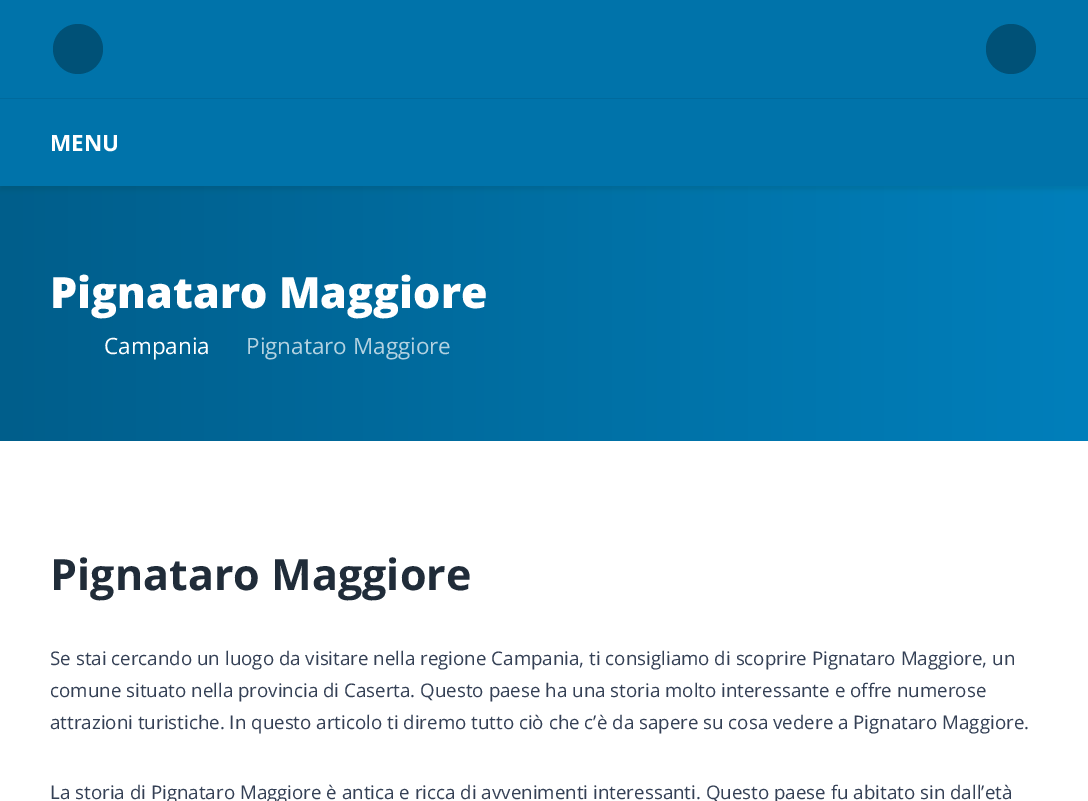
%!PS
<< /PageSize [1088 801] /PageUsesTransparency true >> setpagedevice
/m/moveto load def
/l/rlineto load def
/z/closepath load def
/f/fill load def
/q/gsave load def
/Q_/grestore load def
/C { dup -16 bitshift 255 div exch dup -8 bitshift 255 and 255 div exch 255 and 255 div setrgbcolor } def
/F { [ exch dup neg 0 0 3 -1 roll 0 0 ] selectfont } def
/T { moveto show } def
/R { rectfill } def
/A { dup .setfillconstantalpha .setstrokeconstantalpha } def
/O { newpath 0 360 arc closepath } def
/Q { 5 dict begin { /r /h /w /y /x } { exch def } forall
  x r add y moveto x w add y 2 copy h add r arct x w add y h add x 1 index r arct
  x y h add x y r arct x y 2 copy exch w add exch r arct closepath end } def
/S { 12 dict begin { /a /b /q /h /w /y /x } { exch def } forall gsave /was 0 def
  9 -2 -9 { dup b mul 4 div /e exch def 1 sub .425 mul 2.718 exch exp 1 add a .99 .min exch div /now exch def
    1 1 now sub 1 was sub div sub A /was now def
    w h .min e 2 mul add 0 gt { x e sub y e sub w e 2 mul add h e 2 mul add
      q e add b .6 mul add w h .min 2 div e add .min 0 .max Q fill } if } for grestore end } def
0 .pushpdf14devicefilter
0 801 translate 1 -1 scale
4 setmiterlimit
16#FFFFFF C
0 0 1088 801 R
q 0 186 m 1088 0 l 0 255 l -1088 0 l z clip newpath
<< /ShadingType 2 /ColorSpace /DeviceRGB /Coords [0 314 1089 314] /Extend [true true] /Function << /FunctionType 2 /Domain [0 1] /C0 [0 .369 .545] /C1 [0 .498 .733] /N 1 >> >> shfill Q_
16#000000 C
0 103 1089 87 0 2 .07 S
16#0073AA C
0 0 1088 98 R
16#006A9D C
0 98 1088 1 R
16#005177 C
78 49 25 O f
1011 49 25 O f
16#0073AA C
0 99 1088 87 R
/OpenSans-Bold 22.5 F
16#FFFFFF C
(MENU) 50 151 T
/OpenSans-ExtraBold 43.1 F
(Pignataro Maggiore) 50 308 T
/OpenSans-Regular 22.5 F
(Campania) 104 354 T
16#B3D2E1 C
(Pignataro Maggiore) 246 354 T
/OpenSans-Bold 43.1 F
16#202C39 C
(Pignataro Maggiore) 50 590 T
/OpenSans-Regular 18.75 F
16#344055 C
(Se stai cercando un luogo da visitare nella regione Campania, ti consigliamo di scoprire Pignataro Maggiore, un) 50 665 T
(comune situato nella provincia di Caserta. Questo paese ha una storia molto interessante e offre numerose) 50 697 T
(attrazioni turistiche. In questo articolo ti diremo tutto ciò che c’è da sapere su cosa vedere a Pignataro Maggiore.) 50 729 T
(La storia di Pignataro Maggiore è antica e ricca di avvenimenti interessanti. Questo paese fu abitato sin dall’età) 50 799 T
.poppdf14devicefilter showpage
